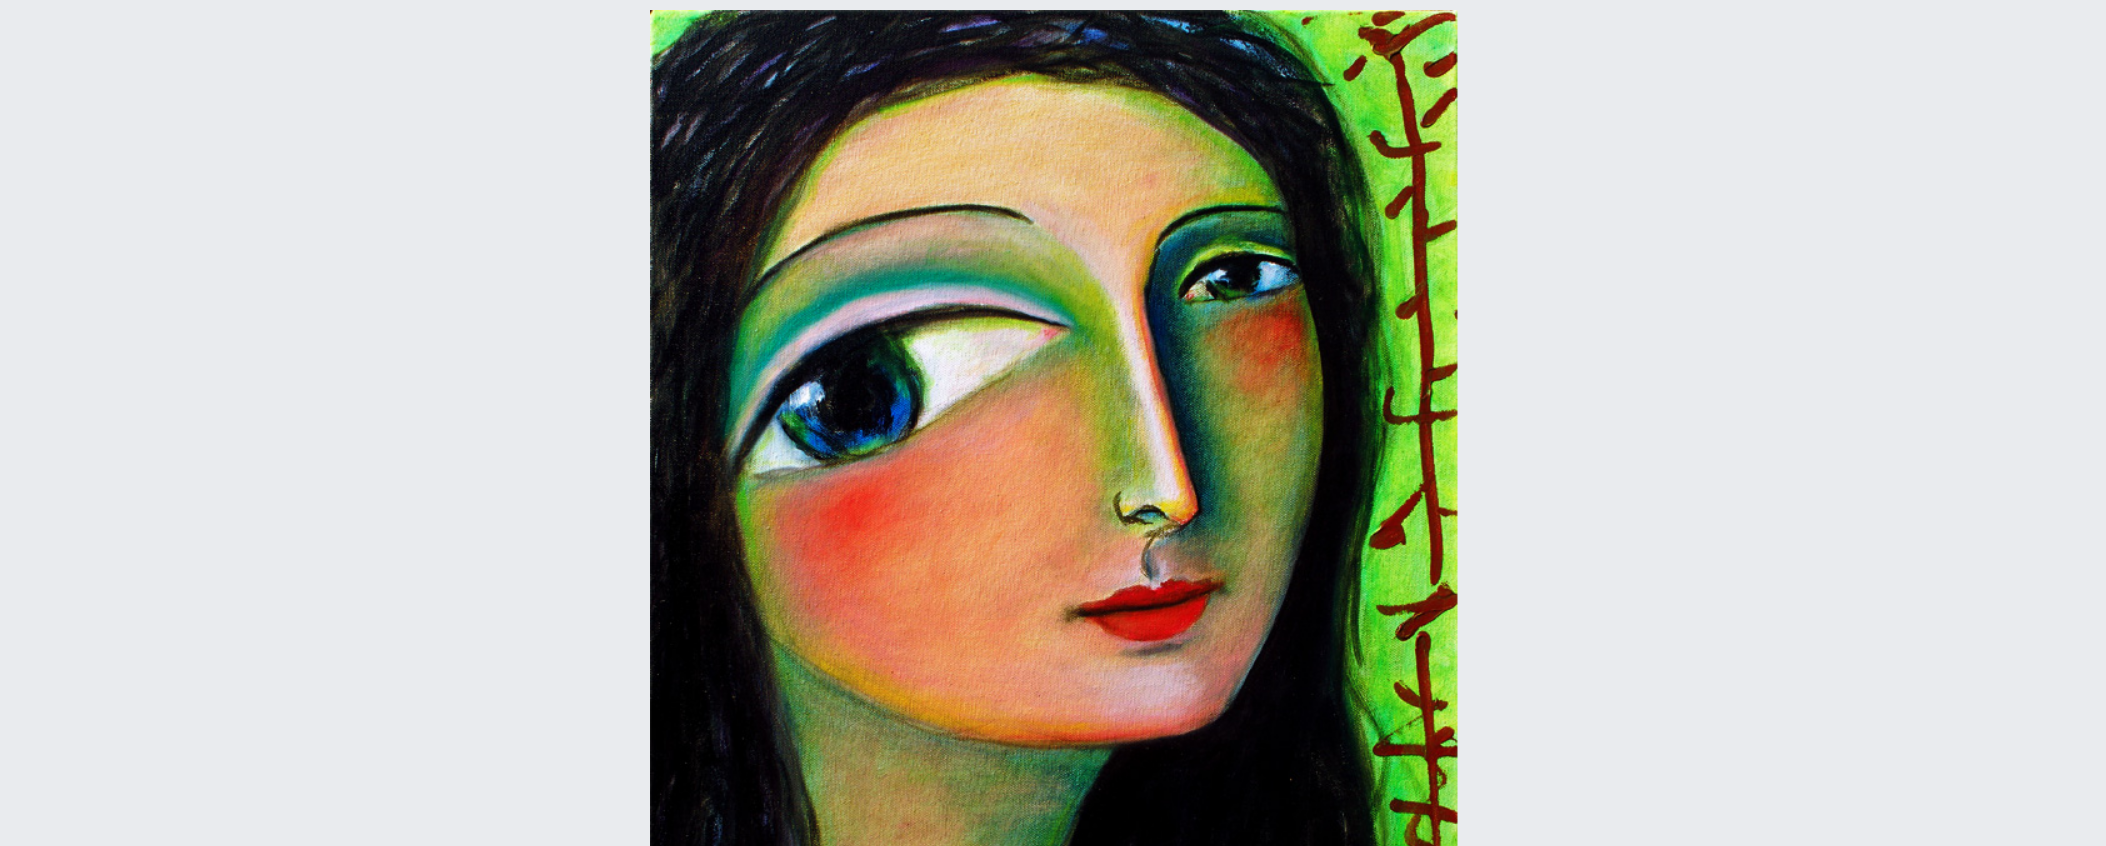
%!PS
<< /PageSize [2106 846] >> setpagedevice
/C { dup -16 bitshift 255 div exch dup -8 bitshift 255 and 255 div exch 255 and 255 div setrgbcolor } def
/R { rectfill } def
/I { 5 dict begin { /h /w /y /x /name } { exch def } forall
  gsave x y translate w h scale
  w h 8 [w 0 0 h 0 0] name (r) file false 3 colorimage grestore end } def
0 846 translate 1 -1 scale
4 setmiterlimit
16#E9EBEE C
0 0 2106 846 R
(1.rgb) 650 10 808 836 I
showpage
